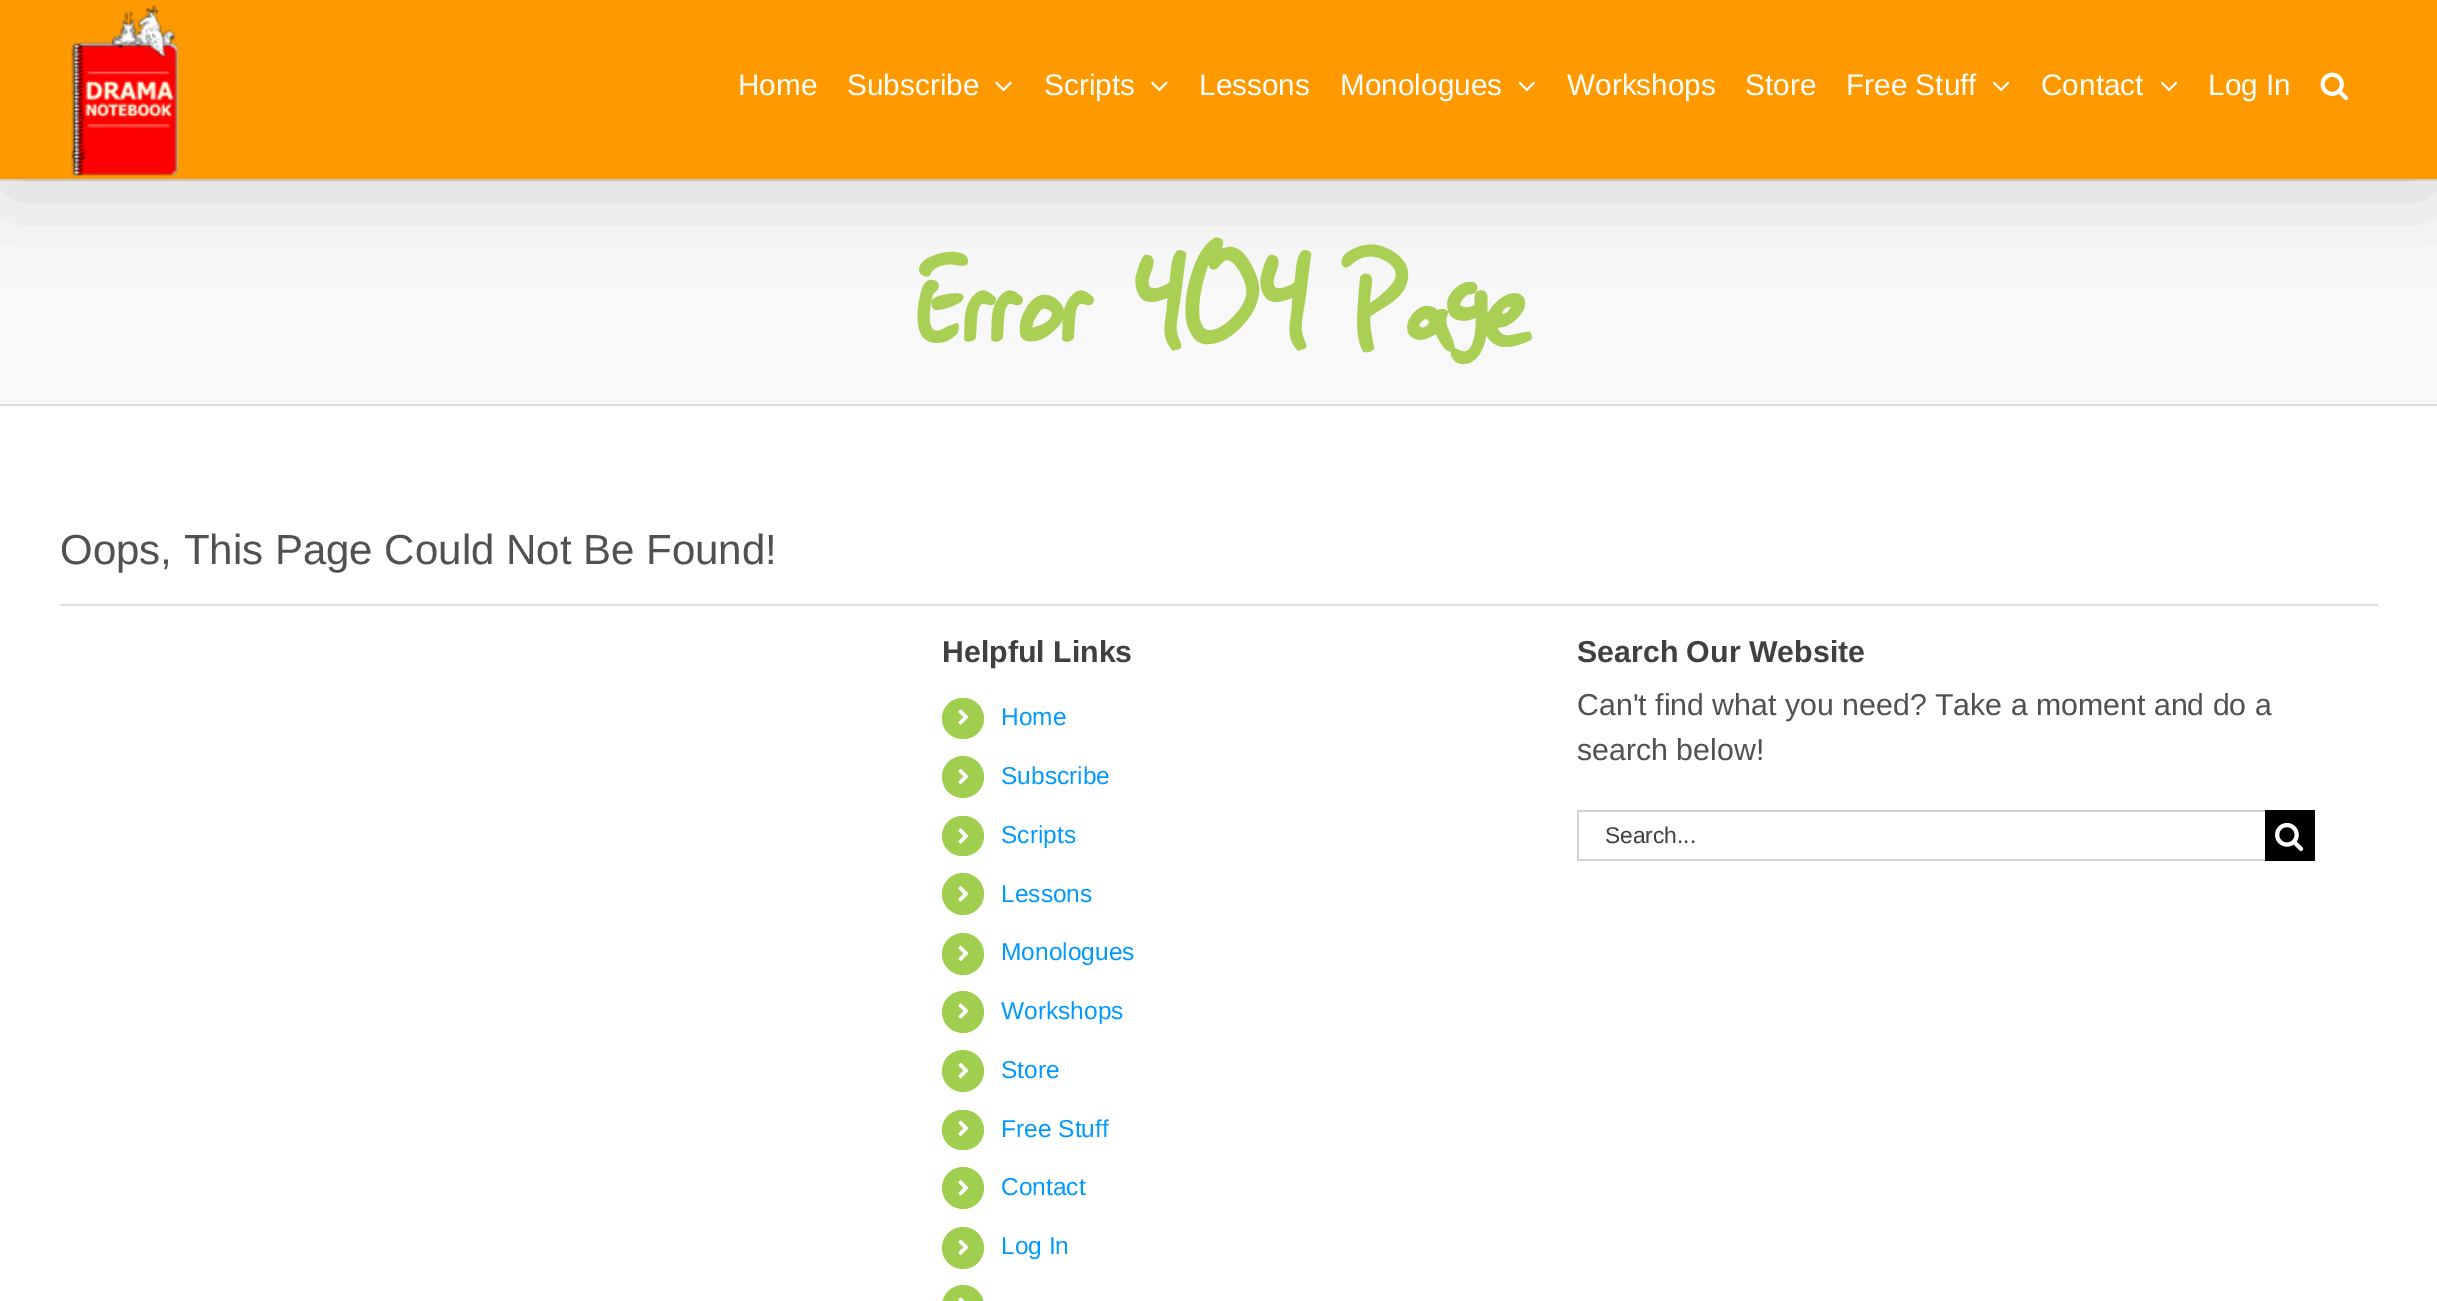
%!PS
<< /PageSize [2437 1301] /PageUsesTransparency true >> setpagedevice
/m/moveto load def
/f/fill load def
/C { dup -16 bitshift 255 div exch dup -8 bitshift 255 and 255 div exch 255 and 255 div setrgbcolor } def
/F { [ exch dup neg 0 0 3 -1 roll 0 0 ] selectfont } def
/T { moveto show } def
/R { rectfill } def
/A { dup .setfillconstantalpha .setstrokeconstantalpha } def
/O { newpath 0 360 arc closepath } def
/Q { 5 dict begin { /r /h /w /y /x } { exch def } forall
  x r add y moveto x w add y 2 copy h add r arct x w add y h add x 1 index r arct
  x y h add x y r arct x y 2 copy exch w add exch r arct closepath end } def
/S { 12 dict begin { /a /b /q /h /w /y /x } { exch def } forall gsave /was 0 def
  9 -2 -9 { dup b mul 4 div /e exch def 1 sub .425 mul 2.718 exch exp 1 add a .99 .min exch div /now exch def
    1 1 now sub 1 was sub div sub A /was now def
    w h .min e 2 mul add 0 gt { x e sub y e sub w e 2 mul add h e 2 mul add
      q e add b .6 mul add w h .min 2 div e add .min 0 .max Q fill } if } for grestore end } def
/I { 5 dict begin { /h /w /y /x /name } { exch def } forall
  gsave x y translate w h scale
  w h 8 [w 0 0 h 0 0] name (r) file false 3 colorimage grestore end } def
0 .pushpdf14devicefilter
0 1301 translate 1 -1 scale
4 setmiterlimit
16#FFFFFF C
0 0 2437 1301 R
16#F8F8F8 C
0 181 2437 223 R
16#DDDDDD C
0 179 2437 2 R
16#000000 C
4 21 2430 172 0 44 .14 S
16#FF9900 C
0 0 2437 179 R
(1.rgb) 71 5 108 172 I
/LiberationSans-Regular 29.75 F
16#FFFFFF C
(Home) 738 95 T
(Subscribe) 847 95 T
(2.rgb) 995 81 17 11 I
(Scripts) 1044 95 T
(3.rgb) 1151 81 17 11 I
(Lessons) 1199 95 T
(Monologues) 1340 95 T
(4.rgb) 1518 81 17 11 I
(Workshops) 1567 95 T
(Store) 1745 95 T
(Free Stuff) 1846 95 T
(5.rgb) 1992 81 18 11 I
(Contact) 2041 95 T
(5.rgb) 2160 81 18 11 I
(Log In) 2208 95 T
(6.rgb) 2320 72 29 29 I
16#DDDDDD C
0 404 2437 2 R
/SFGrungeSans-Bold 140 F
16#A9CF54 C
915 343 m .2 0 (Error 404 Page) ashow
16#E0DEDE C
60 604 2318 2 R
/LiberationSans-Regular 42 F
16#525151 C
(Oops, This Page Could Not Be Found!) 60 564 T
/LiberationSans-Bold 30.3 F
16#404040 C
(Helpful Links) 942 662 T
16#A0CE4E C
942 698 42 41 20.5 Q f
(7.rgb) 958 709 11 16 I
/LiberationSans-Regular 24.5 F
16#0099FF C
(Home) 1001 725 T
16#A0CE4E C
963 777 21 O f
(8.rgb) 958 768 11 17 I
16#0099FF C
(Subscribe) 1001 784 T
16#A0CE4E C
942 816 42 40 20 Q f
(7.rgb) 958 828 11 16 I
16#0099FF C
(Scripts) 1001 843 T
16#A0CE4E C
963 894 21 O f
(9.rgb) 958 886 11 16 I
16#0099FF C
(Lessons) 1001 902 T
16#A0CE4E C
963 954 21 O f
(10.rgb) 958 945 11 16 I
16#0099FF C
(Monologues) 1001 960 T
16#A0CE4E C
963 1012 21 O f
(7.rgb) 958 1003 11 16 I
16#0099FF C
(Workshops) 1001 1019 T
16#A0CE4E C
963 1071 21 O f
(8.rgb) 958 1062 11 17 I
16#0099FF C
(Store) 1001 1078 T
16#A0CE4E C
942 1110 42 40 20 Q f
(10.rgb) 958 1120 11 16 I
16#0099FF C
(Free Stuff) 1001 1137 T
16#A0CE4E C
963 1188 21 O f
(9.rgb) 958 1180 11 16 I
16#0099FF C
(Contact) 1001 1195 T
16#A0CE4E C
963 1248 21 O f
(10.rgb) 958 1239 11 16 I
16#0099FF C
(Log In) 1001 1254 T
16#A0CE4E C
942 1285 42 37 21 Q f
(11.rgb) 958 1297 7 4 I
/LiberationSans-Bold 30.3 F
16#404040 C
(Search Our Website) 1577 662 T
/LiberationSans-Regular 30.3 F
16#525151 C
(Can't find what you need? Take a moment and do a) 1577 715 T
(search below!) 1577 760 T
16#D2D2D2 C
1577 810 688 2 R
1577 859 688 2 R
1577 810 2 51 R
/LiberationSans-Regular 22.75 F
16#404040 C
(Search...) 1605 843 T
16#000000 C
2265 810 50 51 R
(12.rgb) 2275 822 29 29 I
.poppdf14devicefilter showpage
